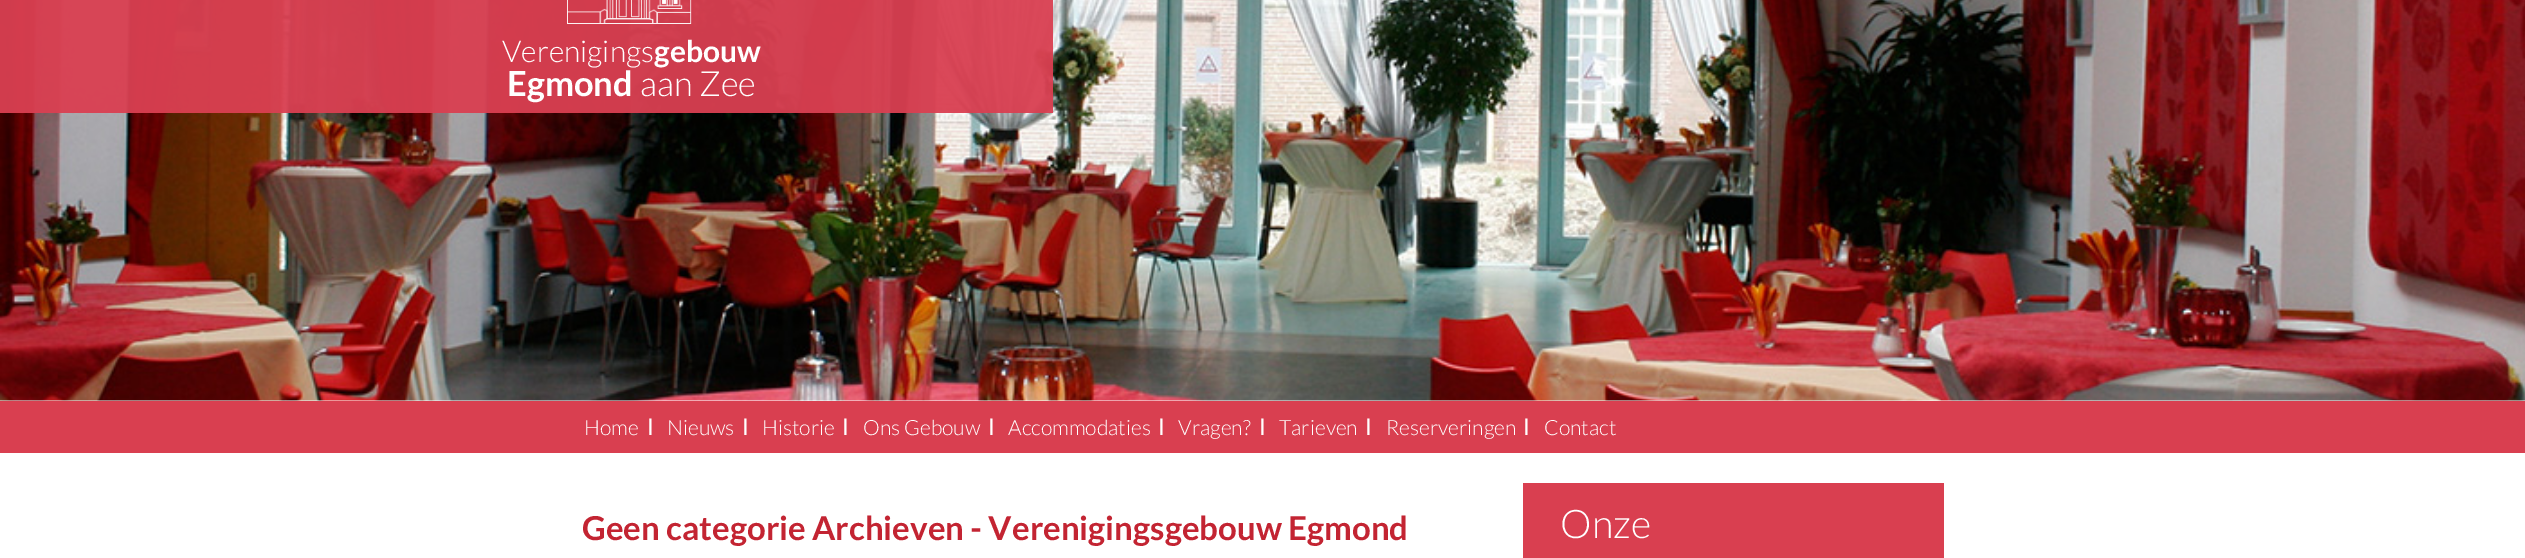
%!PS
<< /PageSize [2525 558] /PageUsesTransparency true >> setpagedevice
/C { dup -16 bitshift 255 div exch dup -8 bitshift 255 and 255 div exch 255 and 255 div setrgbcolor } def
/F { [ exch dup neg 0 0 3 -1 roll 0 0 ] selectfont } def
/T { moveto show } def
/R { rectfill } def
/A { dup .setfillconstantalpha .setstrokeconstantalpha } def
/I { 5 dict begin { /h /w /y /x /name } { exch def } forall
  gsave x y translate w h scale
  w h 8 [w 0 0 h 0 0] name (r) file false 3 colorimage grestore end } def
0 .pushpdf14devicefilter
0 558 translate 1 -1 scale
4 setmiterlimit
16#FFFFFF C
0 0 2525 558 R
(1.rgb) 0 0 2525 401 I
0.95 A
16#D93F51 C
0 0 1053 113 R
1 A
(2.rgb) 567 0 125 24 I
/Lato-Light 30 F
16#FFFFFF C
(Verenigings) 502 62 T
/Lato-Bold 30 F
(gebouw) 654 62 T
/Lato-Bold 34.5 F
(Egmond) 507 96 T
/Lato-Light 34.5 F
(aan Zee) 640 96 T
16#D93F50 C
0 401 2525 52 R
/Lato-Light 21 F
16#FFFFFF C
(Home) 584 435 T
/LiberationSans-Regular 24 F
(Ι) 647 435 T
/Lato-Light 21 F
(Nieuws) 667 435 T
/LiberationSans-Regular 24 F
(Ι) 742 435 T
/Lato-Light 21 F
(Historie) 762 435 T
/LiberationSans-Regular 24 F
(Ι) 842 435 T
/Lato-Light 21 F
(Ons Gebouw) 863 435 T
/LiberationSans-Regular 24 F
(Ι) 988 435 T
/Lato-Light 21 F
(Accommodaties) 1008 435 T
/LiberationSans-Regular 24 F
(Ι) 1158 435 T
/Lato-Light 21 F
(Vragen?) 1178 435 T
/LiberationSans-Regular 24 F
(Ι) 1259 435 T
/Lato-Light 21 F
(Tarieven) 1279 435 T
/LiberationSans-Regular 24 F
(Ι) 1365 435 T
/Lato-Light 21 F
(Reserveringen) 1386 435 T
/LiberationSans-Regular 24 F
(Ι) 1523 435 T
/Lato-Light 21 F
(Contact) 1544 435 T
/Lato-Bold 33 F
16#C32432 C
(Geen categorie Archieven - Verenigingsgebouw Egmond) 582 540 T
16#D93F50 C
1523 483 421 75 R
/Lato-Light 39.5 F
16#FFFFFF C
(Onze) 1560 538 T
.poppdf14devicefilter showpage
